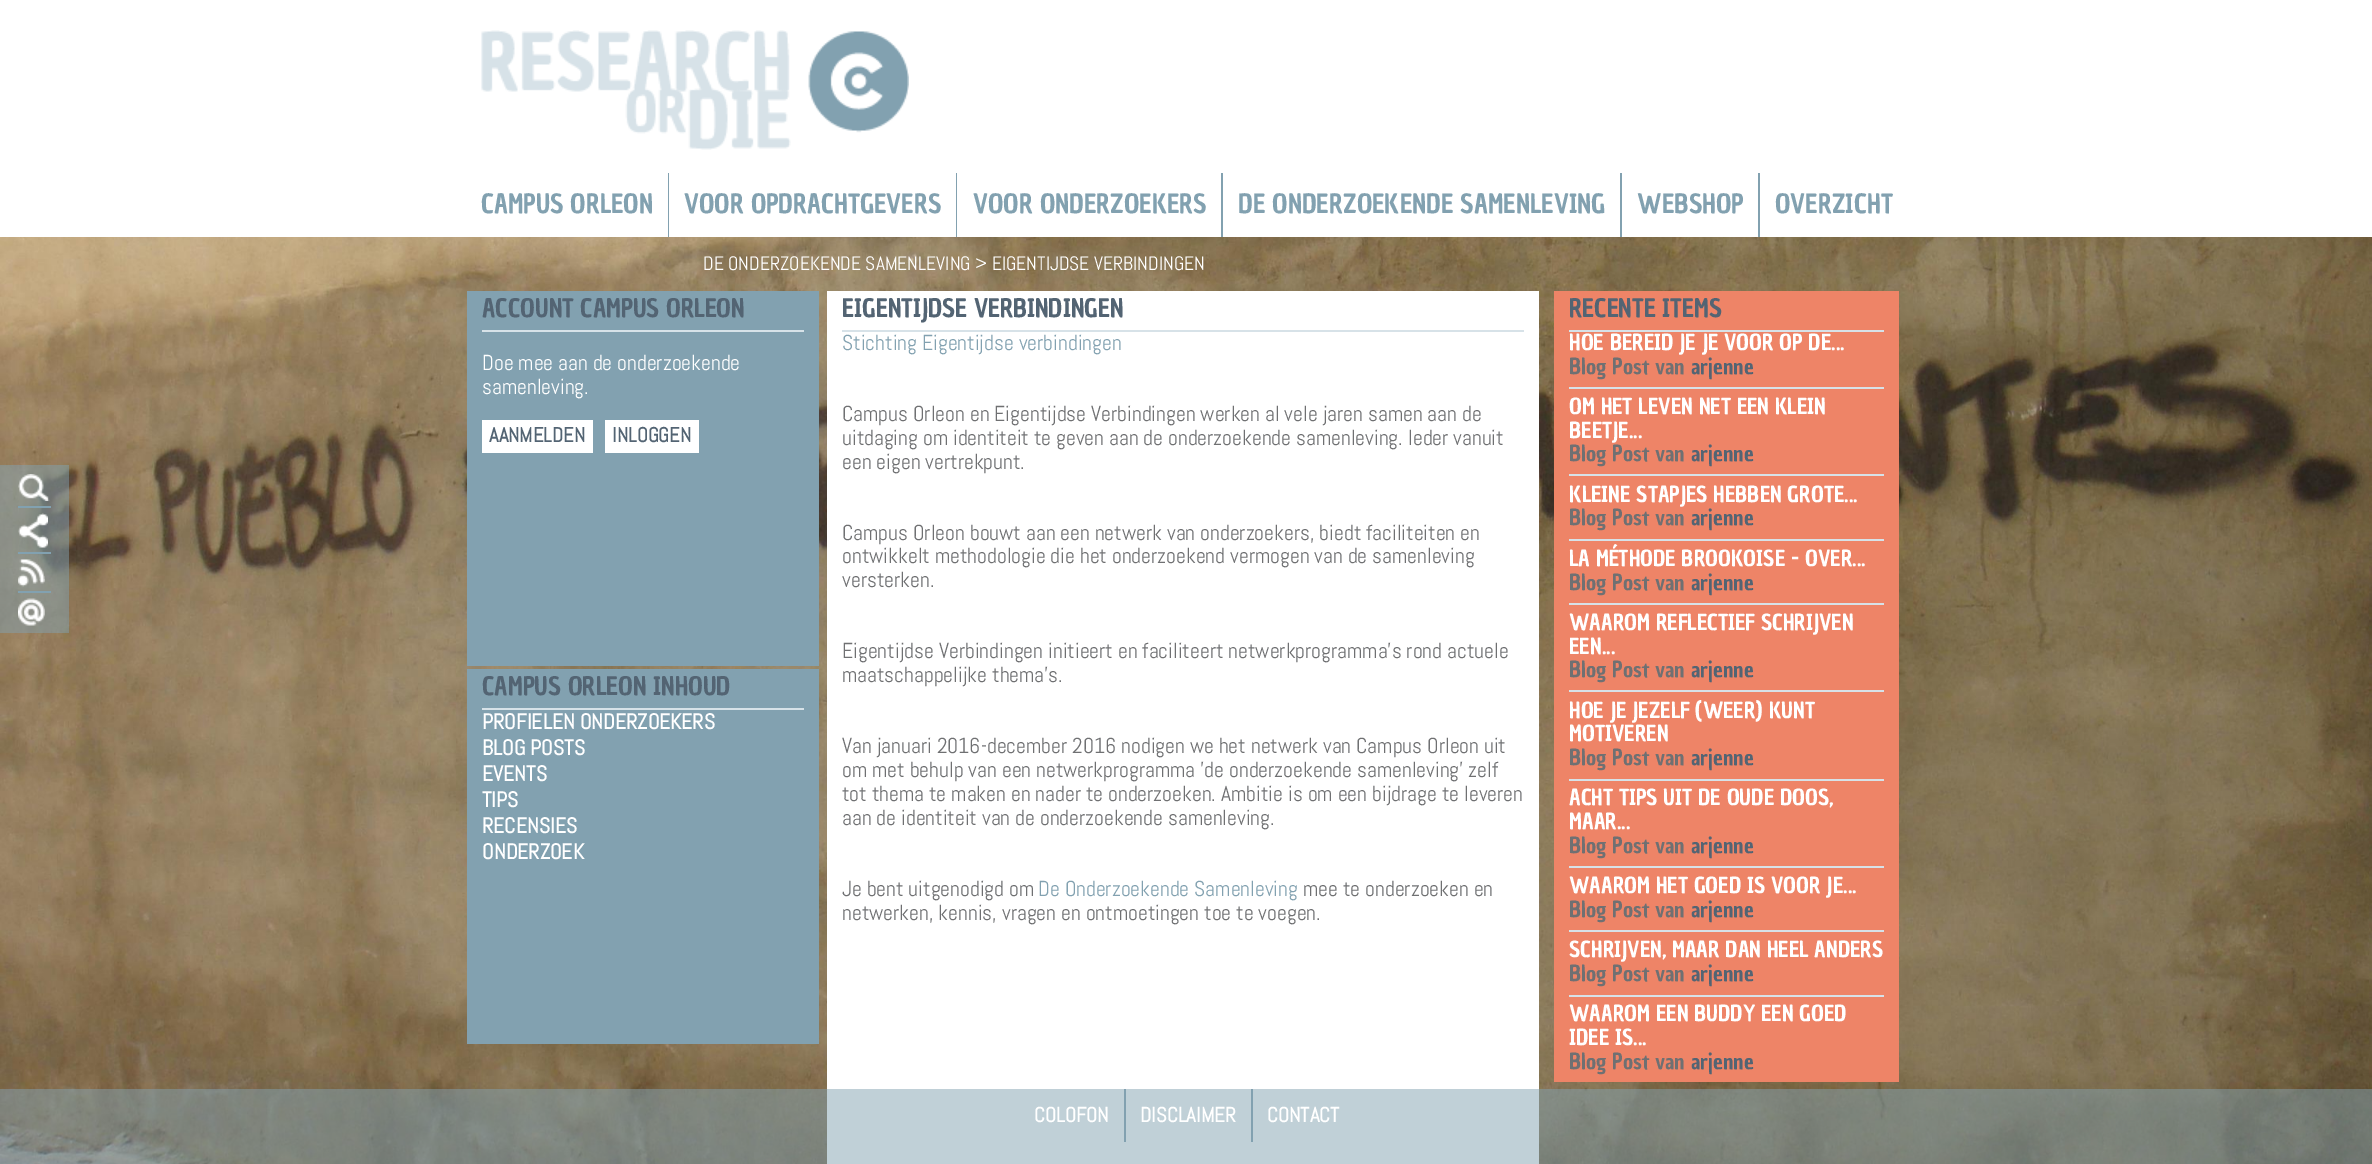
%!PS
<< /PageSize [2372 1164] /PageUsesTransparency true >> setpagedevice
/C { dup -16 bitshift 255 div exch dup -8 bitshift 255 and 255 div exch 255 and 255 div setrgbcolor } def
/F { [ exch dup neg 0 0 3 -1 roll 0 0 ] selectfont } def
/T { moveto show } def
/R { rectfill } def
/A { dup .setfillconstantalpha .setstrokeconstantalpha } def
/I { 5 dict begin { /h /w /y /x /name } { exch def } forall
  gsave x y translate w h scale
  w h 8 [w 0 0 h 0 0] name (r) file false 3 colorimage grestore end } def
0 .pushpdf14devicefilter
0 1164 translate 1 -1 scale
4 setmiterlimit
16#FFFFFF C
0 0 2372 1164 R
(1.rgb) 0 237 2372 927 I
(2.rgb) 481 30 428 120 I
16#82A1B0 C
668 173 1 64 R
/ChauPhilomeneOne-Regular 25.9 F
(CAMPUS ORLEON) 481 213 T
956 173 1 64 R
(VOOR OPDRACHTGEVERS) 684 213 T
1221 173 2 64 R
(VOOR ONDERZOEKERS) 973 213 T
1620 173 2 64 R
(DE ONDERZOEKENDE SAMENLEVING) 1238 213 T
1758 173 2 64 R
(WEBSHOP) 1637 213 T
(OVERZICHT) 1775 213 T
/Abel-Regular 19.45 F
16#FFFFFF C
(DE ONDERZOEKENDE SAMENLEVING > EIGENTIJDSE VERBINDINGEN) 703 270 T
0.5 A
16#82A1B0 C
0 465 69 168 R
1 A
(3.rgb) 18 474 32 27 I
18 506 33 2 R
(4.rgb) 18 513 30 35 I
18 552 33 2 R
(5.rgb) 18 559 27 28 I
18 591 33 2 R
(6.rgb) 18 598 27 28 I
467 291 352 375 R
16#D7E2E8 C
482 330 322 2 R
/ChauPhilomeneOne-Regular 24.8 F
16#536473 C
(ACCOUNT CAMPUS ORLEON) 482 317 T
/Abel-Regular 21.6 F
16#FFFFFF C
(Doe mee aan de onderzoekende) 482 370 T
(samenleving.) 482 394 T
482 420 111 33 R
/Abel-Bold 20.5 F
16#536473 C
(AANMELDEN) 489 442 T
16#FFFFFF C
605 420 94 33 R
16#536473 C
(INLOGGEN) 612 442 T
16#82A1B0 C
467 669 352 375 R
16#D7E2E8 C
482 708 322 2 R
/ChauPhilomeneOne-Regular 24.8 F
16#536473 C
(CAMPUS ORLEON INHOUD) 482 695 T
/Abel-Bold 21.6 F
16#FFFFFF C
(PROFIELEN ONDERZOEKERS) 482 729 T
(BLOG POSTS) 482 755 T
(EVENTS) 482 781 T
(TIPS) 482 807 T
(RECENSIES) 482 833 T
(ONDERZOEK) 482 859 T
827 291 712 873 R
16#D7E2E8 C
842 330 682 2 R
/ChauPhilomeneOne-Regular 24.8 F
16#536473 C
(EIGENTIJDSE VERBINDINGEN) 842 317 T
/Abel-Regular 21.6 F
16#82A1B0 C
(Stichting Eigentijdse verbindingen) 842 350 T
16#6F7072 C
(Campus Orleon en Eigentijdse Verbindingen werken al vele jaren samen aan de) 842 421 T
(uitdaging om identiteit te geven aan de onderzoekende samenleving. Ieder vanuit) 842 445 T
(een eigen vertrekpunt.) 842 469 T
(Campus Orleon bouwt aan een netwerk van onderzoekers, biedt faciliteiten en) 842 540 T
(ontwikkelt methodologie die het onderzoekend vermogen van de samenleving) 842 563 T
(versterken.) 842 587 T
(Eigentijdse Verbindingen initieert en faciliteert netwerkprogramma's rond actuele) 842 658 T
(maatschappelijke thema's.) 842 682 T
(Van januari 2016-december 2016 nodigen we het netwerk van Campus Orleon uit) 842 753 T
(om met behulp van een netwerkprogramma 'de onderzoekende samenleving' zelf) 842 777 T
(tot thema te maken en nader te onderzoeken. Ambitie is om een bijdrage te leveren) 842 801 T
(aan de identiteit van de onderzoekende samenleving.) 842 825 T
(Je bent uitgenodigd om) 842 896 T
16#82A1B0 C
(De Onderzoekende Samenleving) 1038 896 T
16#6F7072 C
(mee te onderzoeken en) 1303 896 T
(netwerken, kennis, vragen en ontmoetingen toe te voegen.) 842 920 T
16#EE8467 C
1554 291 345 791 R
16#D7E2E8 C
1569 330 315 2 R
/ChauPhilomeneOne-Regular 24.8 F
16#536473 C
(RECENTE ITEMS) 1569 317 T
/ChauPhilomeneOne-Regular 21.6 F
16#FFFFFF C
(HOE BEREID JE JE VOOR OP DE...) 1569 350 T
16#6F7072 C
(Blog Post van) 1569 374 T
16#536473 C
(arjenne) 1691 374 T
16#D7E2E8 C
1569 387 315 2 R
16#FFFFFF C
(OM HET LEVEN NET EEN KLEIN) 1569 414 T
(BEETJE...) 1569 438 T
16#6F7072 C
(Blog Post van) 1569 461 T
16#536473 C
(arjenne) 1691 461 T
16#D7E2E8 C
1569 474 315 2 R
16#FFFFFF C
(KLEINE STAPJES HEBBEN GROTE...) 1569 502 T
16#6F7072 C
(Blog Post van) 1569 525 T
16#536473 C
(arjenne) 1691 525 T
16#D7E2E8 C
1569 539 315 2 R
16#FFFFFF C
(LA MÉTHODE BROOKOISE - OVER...) 1569 566 T
16#6F7072 C
(Blog Post van) 1569 590 T
16#536473 C
(arjenne) 1691 590 T
16#D7E2E8 C
1569 603 315 2 R
16#FFFFFF C
(WAAROM REFLECTIEF SCHRIJVEN) 1569 630 T
(EEN...) 1569 654 T
16#6F7072 C
(Blog Post van) 1569 677 T
16#536473 C
(arjenne) 1691 677 T
16#D7E2E8 C
1569 690 315 2 R
16#FFFFFF C
(HOE JE JEZELF \(WEER\) KUNT) 1569 718 T
(MOTIVEREN) 1569 741 T
16#6F7072 C
(Blog Post van) 1569 765 T
16#536473 C
(arjenne) 1691 765 T
16#D7E2E8 C
1569 779 315 2 R
16#FFFFFF C
(ACHT TIPS UIT DE OUDE DOOS,) 1569 805 T
(MAAR...) 1569 829 T
16#6F7072 C
(Blog Post van) 1569 853 T
16#536473 C
(arjenne) 1691 853 T
16#D7E2E8 C
1569 866 315 2 R
16#FFFFFF C
(WAAROM HET GOED IS VOOR JE...) 1569 893 T
16#6F7072 C
(Blog Post van) 1569 917 T
16#536473 C
(arjenne) 1691 917 T
16#D7E2E8 C
1569 930 315 2 R
16#FFFFFF C
(SCHRIJVEN, MAAR DAN HEEL ANDERS) 1569 957 T
16#6F7072 C
(Blog Post van) 1569 981 T
16#536473 C
(arjenne) 1691 981 T
16#D7E2E8 C
1569 995 315 2 R
16#FFFFFF C
(WAAROM EEN BUDDY EEN GOED) 1569 1021 T
(IDEE IS...) 1569 1045 T
16#6F7072 C
(Blog Post van) 1569 1069 T
16#536473 C
(arjenne) 1691 1069 T
0.5 A
16#82A1B0 C
0 1089 2372 75 R
1 A
1124 1089 2 53 R
/Abel-Bold 20.75 F
16#FFFFFF C
(COLOFON) 1034 1122 T
16#82A1B0 C
1251 1089 2 53 R
16#FFFFFF C
(DISCLAIMER) 1140 1122 T
(CONTACT) 1267 1122 T
.poppdf14devicefilter showpage
